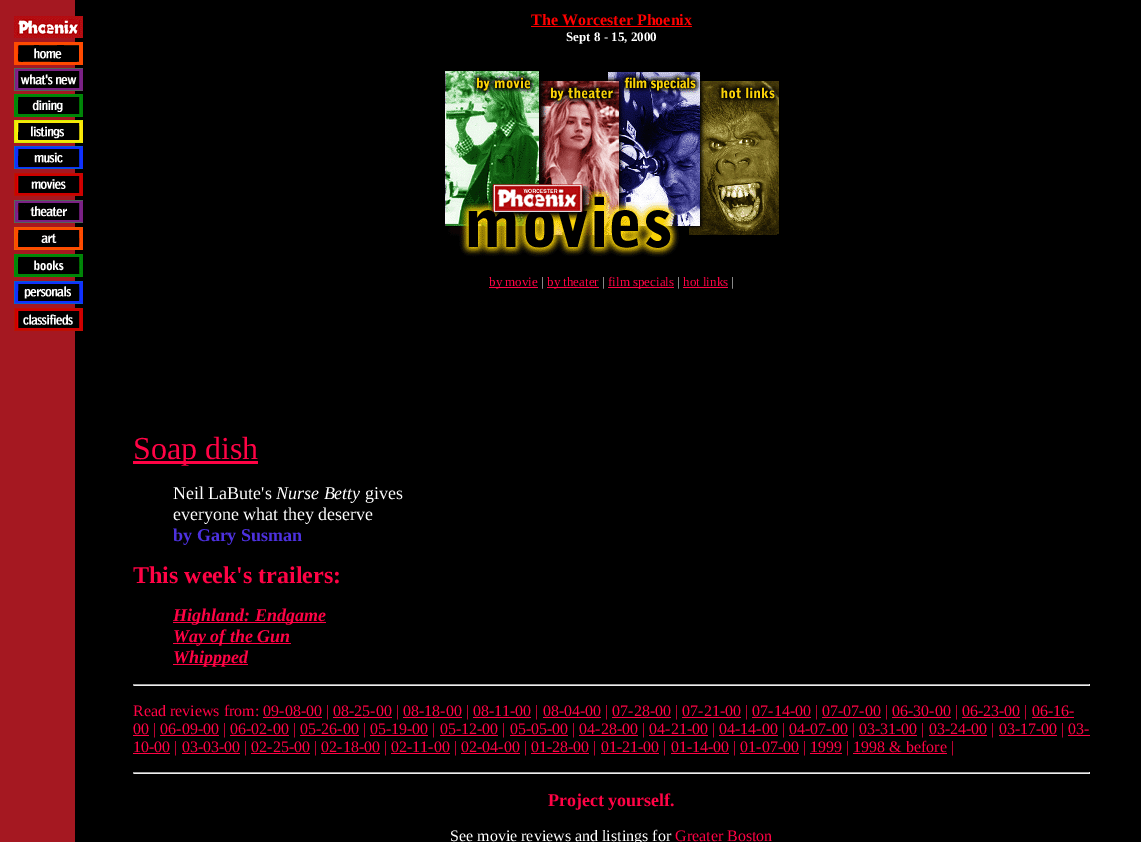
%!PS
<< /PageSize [1141 842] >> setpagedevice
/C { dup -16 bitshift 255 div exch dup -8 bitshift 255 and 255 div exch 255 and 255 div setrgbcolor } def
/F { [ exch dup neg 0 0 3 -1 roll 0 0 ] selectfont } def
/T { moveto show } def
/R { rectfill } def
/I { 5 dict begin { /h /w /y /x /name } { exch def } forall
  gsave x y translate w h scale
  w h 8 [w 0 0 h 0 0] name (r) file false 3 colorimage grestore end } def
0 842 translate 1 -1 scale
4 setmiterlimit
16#000000 C
0 0 1141 842 R
16#A51821 C
0 0 75 842 R
(1.rgb) 14 16 69 315 I
/LiberationSerif-Bold 16 F
16#FF0000 C
(The Worcester Phoenix) 531 25 T
531 26 161 1 R
/LiberationSerif-Bold 13 F
16#FFFFFF C
(Sept 8 - 15, 2000) 566 41 T
(2.rgb) 444 71 335 186 I
16#FF0345 C
489 287 49 1 R
/LiberationSerif-Regular 13 F
(by movie) 489 286 T
16#FFFFFF C
(|) 541 286 T
16#FF0345 C
547 287 52 1 R
(by theater) 547 286 T
16#FFFFFF C
(|) 602 286 T
16#FF0345 C
608 287 66 1 R
(film specials) 608 286 T
16#FFFFFF C
(|) 677 286 T
16#FF0345 C
(hot links) 683 286 T
683 287 45 1 R
16#FFFFFF C
(|) 731 286 T
16#FF0345 C
133 461 125 3 R
/LiberationSerif-Regular 32 F
(Soap dish) 133 459 T
/LiberationSerif-Regular 18 F
16#FFFFFF C
(Neil LaBute's) 173 499 T
/LiberationSerif-Italic 18 F
(Nurse Betty) 276 499 T
/LiberationSerif-Regular 18 F
(gives) 365 499 T
(everyone what they deserve) 173 520 T
/LiberationSerif-Bold 18 F
16#4D31DF C
(by Gary Susman) 173 541 T
/LiberationSerif-Bold 24 F
16#FF0345 C
(This week's trailers:) 133 583 T
173 622 153 1 R
/LiberationSerif-BoldItalic 18 F
(Highland: Endgame) 173 621 T
173 643 118 1 R
(Way of the Gun) 173 642 T
173 664 75 1 R
(Whippped) 173 663 T
16#9F9F9F C
133 684 957 1 R
16#EEEEEE C
1089 684 1 2 R
133 685 957 1 R
16#9F9F9F C
133 684 1 2 R
/LiberationSerif-Regular 16 F
16#FF0345 C
(Read reviews from: 09-08-00 | 08-25-00 | 08-18-00 | 08-11-00 | 08-04-00 | 07-28-00 | 07-21-00 | 07-14-00 | 07-07-00 | 06-30-00 | 06-23-00 | 06-16-) 133 716 T
263 717 59 1 R
333 717 59 1 R
403 717 59 1 R
473 717 58 1 R
543 717 58 1 R
612 717 59 1 R
682 717 59 1 R
752 717 59 1 R
822 717 59 1 R
892 717 59 1 R
962 717 58 1 R
1032 717 42 1 R
133 735 16 1 R
(00 | 06-09-00 | 06-02-00 | 05-26-00 | 05-19-00 | 05-12-00 | 05-05-00 | 04-28-00 | 04-21-00 | 04-14-00 | 04-07-00 | 03-31-00 | 03-24-00 | 03-17-00 | 03-) 133 734 T
160 735 59 1 R
230 735 59 1 R
300 735 59 1 R
370 735 58 1 R
440 735 58 1 R
510 735 58 1 R
579 735 59 1 R
649 735 59 1 R
719 735 59 1 R
789 735 59 1 R
859 735 58 1 R
929 735 58 1 R
999 735 58 1 R
1068 735 22 1 R
133 753 37 1 R
(10-00 | 03-03-00 | 02-25-00 | 02-18-00 | 02-11-00 | 02-04-00 | 01-28-00 | 01-21-00 | 01-14-00 | 01-07-00 | 1999 | 1998 & before |) 133 752 T
182 753 58 1 R
251 753 59 1 R
321 753 59 1 R
391 753 59 1 R
461 753 59 1 R
531 753 58 1 R
601 753 58 1 R
671 753 58 1 R
740 753 59 1 R
810 753 32 1 R
853 753 94 1 R
16#9F9F9F C
133 772 957 1 R
16#EEEEEE C
1089 772 1 2 R
133 773 957 1 R
16#9F9F9F C
133 772 1 2 R
/LiberationSerif-Bold 18 F
16#FF0345 C
(Project yourself.) 548 806 T
/LiberationSerif-Regular 16 F
16#FFFFFF C
(See movie reviews and listings for) 450 841 T
16#FF0345 C
(Greater Boston) 675 841 T
showpage
